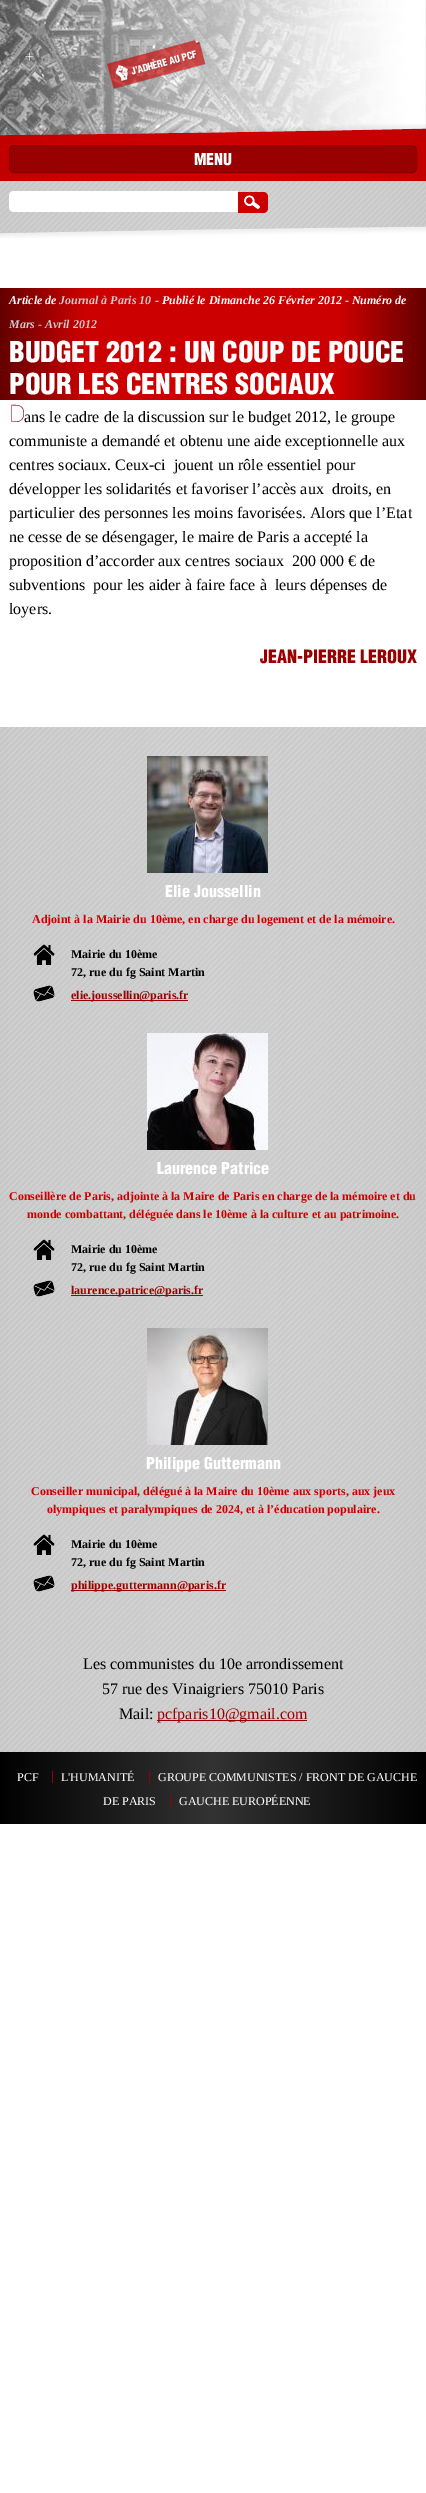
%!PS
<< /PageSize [426 2493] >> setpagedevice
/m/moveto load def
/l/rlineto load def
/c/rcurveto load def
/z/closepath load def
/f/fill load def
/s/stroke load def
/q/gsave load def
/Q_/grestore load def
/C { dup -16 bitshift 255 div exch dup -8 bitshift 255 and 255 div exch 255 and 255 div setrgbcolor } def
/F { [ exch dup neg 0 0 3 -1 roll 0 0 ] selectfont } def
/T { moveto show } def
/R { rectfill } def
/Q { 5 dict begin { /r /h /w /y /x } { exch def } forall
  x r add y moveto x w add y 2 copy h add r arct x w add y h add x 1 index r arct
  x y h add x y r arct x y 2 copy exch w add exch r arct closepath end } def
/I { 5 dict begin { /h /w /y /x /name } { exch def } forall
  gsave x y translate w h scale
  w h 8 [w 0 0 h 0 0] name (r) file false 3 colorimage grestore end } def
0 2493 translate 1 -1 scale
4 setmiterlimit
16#FFFFFF C
0 0 426 2493 R
(1.rgb) 0 0 426 136 I
(2.rgb) 0 124 426 114 I
(3.rgb) 107 40 99 49 I
16#990000 C
9.5 145.5 407 27 4.5 Q q f Q_
16#890000 C
s
/Helvetica-Black 16 F
16#FFFFFF C
(MENU) 194 165 T
14 191 m 224 0 l 0 21 l -224 0 l -3 0 -5 -2 -5 -5 c 0 -11 l 0 -3 2 -5 5 -5 c z f
16#CC0000 C
238 192 m 25 0 l 3 0 5 2 5 5 c 0 11 l 0 3 -2 5 -5 5 c -25 0 l z f
(4.rgb) 244 195 16 14 I
q 0 288 m 426 0 l 0 112 l -426 0 l z clip newpath
<< /ShadingType 2 /ColorSpace /DeviceRGB /Coords [0 344 426 344] /Extend [true true] /Function << /FunctionType 3 /Domain [0 1] /Functions [<< /FunctionType 2 /Domain [0 1] /C0 [.392 0 0] /C1 [.8 0 0] /N 1 >> << /FunctionType 2 /Domain [0 1] /C0 [.8 0 0] /C1 [.8 0 0] /N 1 >> << /FunctionType 2 /Domain [0 1] /C0 [.8 0 0] /C1 [.392 0 0] /N 1 >>] /Bounds [.2 .8] /Encode [0 1 0 1 0 1] >> >> shfill Q_
/LiberationSerif-BoldItalic 12 F
16#FFFFFF C
(Article de) 9 304 T
16#CCCCCC C
(Journal à Paris 10) 59 304 T
16#FFFFFF C
(- Publié le Dimanche 26 Février 2012 - Numéro de) 155 304 T
16#CCCCCC C
(Mars - Avril 2012) 9 328 T
/Helvetica-Black 28 F
16#FFFFFF C
(BUDGET 2012 : UN COUP DE POUCE) 9 362 T
(POUR LES CENTRES SOCIAUX) 9 394 T
/NotoSans-Thin 24 F
16#990000 C
(D) 9 422 T
/LiberationSerif-Regular 16 F
16#000000 C
(ans le cadre de la discussion sur le budget 2012, le groupe) 24 422 T
(communiste a demandé et obtenu une aide exceptionnelle aux) 9 446 T
(centres sociaux. Ceux-ci  jouent un rôle essentiel pour) 9 470 T
(développer les solidarités et favoriser l’accès aux  droits, en) 9 494 T
(particulier des personnes les moins favorisées. Alors que l’Etat) 9 518 T
(ne cesse de se désengager, le maire de Paris a accepté la) 9 542 T
(proposition d’accorder aux centres sociaux  200 000 € de) 9 566 T
(subventions  pour les aider à faire face à  leurs dépenses de) 9 590 T
(loyers.) 9 614 T
/Helvetica-Black 18 F
16#990000 C
(JEAN-PIERRE LEROUX) 260 663 T
(5.rgb) 0 727 426 1025 I
(6.rgb) 147 756 121 117 I
/Helvetica-Black 16 F
16#FFFFFF C
(Elie Joussellin) 165 897 T
/LiberationSerif-Bold 12 F
16#CC0000 C
(Adjoint à la Mairie du 10ème, en charge du logement et de la mémoire.) 32 923 T
(7.rgb) 33 944 22 21 I
16#000000 C
(Mairie du 10ème) 71 958 T
(72, rue du fg Saint Martin) 71 976 T
(8.rgb) 33 985 22 17 I
16#990000 C
71 1000 117 1 R
(elie.joussellin@paris.fr) 71 999 T
(9.rgb) 147 1033 121 117 I
/Helvetica-Black 16 F
16#FFFFFF C
(Laurence Patrice) 157 1174 T
/LiberationSerif-Bold 12 F
16#CC0000 C
(Conseillère de Paris, adjointe à la Maire de Paris en charge de la mémoire et du) 9 1200 T
(monde combattant, déléguée dans le 10ème à la culture et au patrimoine.) 27 1218 T
(10.rgb) 33 1239 22 21 I
16#000000 C
(Mairie du 10ème) 71 1253 T
(72, rue du fg Saint Martin) 71 1271 T
(11.rgb) 33 1280 22 17 I
16#990000 C
71 1295 132 1 R
(laurence.patrice@paris.fr) 71 1294 T
(12.rgb) 147 1328 121 117 I
/Helvetica-Black 16 F
16#FFFFFF C
(Philippe Guttermann) 146 1469 T
/LiberationSerif-Bold 12 F
16#CC0000 C
(Conseiller municipal, délégué à la Maire du 10ème aux sports, aux jeux) 31 1495 T
(olympiques et paralympiques de 2024, et à l’éducation populaire.) 47 1513 T
(13.rgb) 33 1534 22 21 I
16#000000 C
(Mairie du 10ème) 71 1548 T
(72, rue du fg Saint Martin) 71 1566 T
(14.rgb) 33 1575 22 17 I
16#990000 C
71 1590 155 1 R
(philippe.guttermann@paris.fr) 71 1589 T
/LiberationSerif-Regular 16 F
16#000000 C
(Les communistes du 10e arrondissement) 83 1669 T
(57 rue des Vinaigriers 75010 Paris) 102 1694 T
(Mail:) 119 1719 T
16#990000 C
157 1720 150 1 R
(pcfparis10@gmail.com) 157 1719 T
q 0 1752 m 426 0 l 0 72 l -426 0 l z clip newpath
<< /ShadingType 2 /ColorSpace /DeviceRGB /Coords [0 1788 426 1788] /Extend [true true] /Function << /FunctionType 3 /Domain [0 1] /Functions [<< /FunctionType 2 /Domain [0 1] /C0 [.004 .004 .004] /C1 [.2 .2 .2] /N 1 >> << /FunctionType 2 /Domain [0 1] /C0 [.2 .2 .2] /C1 [.004 .004 .004] /N 1 >>] /Bounds [.5] /Encode [0 1 0 1] >> >> shfill Q_
/LiberationSerif-Regular 12 F
16#FFFFFF C
(PCF) 17 1781 T
16#990000 C
52 1771 1 12 R
16#FFFFFF C
(L'HUMANITÉ) 61 1781 T
16#990000 C
149 1771 1 12 R
16#FFFFFF C
(GROUPE COMMUNISTES / FRONT DE GAUCHE) 158 1781 T
(DE PARIS) 103 1805 T
16#990000 C
170 1795 1 12 R
16#FFFFFF C
(GAUCHE EUROPÉENNE) 179 1805 T
showpage
